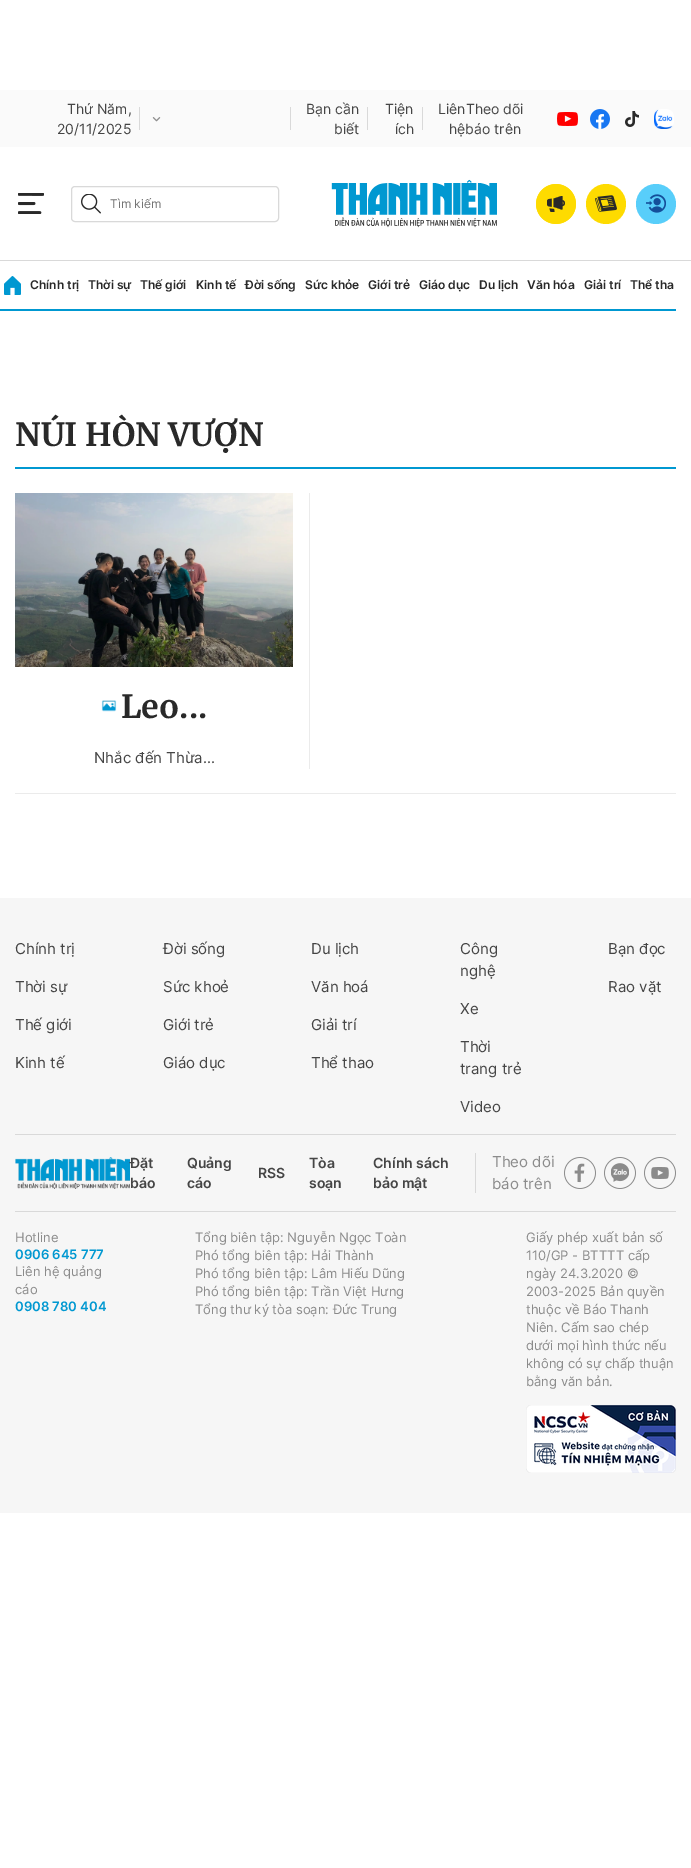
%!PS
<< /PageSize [691 1868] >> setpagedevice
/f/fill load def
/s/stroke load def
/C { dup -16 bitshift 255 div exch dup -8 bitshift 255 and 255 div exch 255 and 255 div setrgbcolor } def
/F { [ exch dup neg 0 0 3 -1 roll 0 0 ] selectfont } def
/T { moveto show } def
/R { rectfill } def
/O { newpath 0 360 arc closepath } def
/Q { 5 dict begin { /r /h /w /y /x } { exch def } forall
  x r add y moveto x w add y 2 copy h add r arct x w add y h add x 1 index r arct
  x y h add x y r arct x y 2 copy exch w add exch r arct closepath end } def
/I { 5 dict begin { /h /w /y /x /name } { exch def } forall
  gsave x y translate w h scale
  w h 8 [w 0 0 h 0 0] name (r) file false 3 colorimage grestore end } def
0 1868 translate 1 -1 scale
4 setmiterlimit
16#FFFFFF C
0 0 691 1868 R
16#FAFAFA C
0 90 691 57 R
16#D9D9D9 C
139 107 1 23 R
/Inter-Regular 14 F
16#454545 C
(Thứ Năm,) 67 114 T
(20/11/2025) 57 134 T
16#D9D9D9 C
290 107 1 23 R
(1.rgb) 152 117 9 5 I
367 107 1 23 R
16#454545 C
(Bạn cần) 306 114 T
(biết) 334 134 T
16#D9D9D9 C
422 107 1 23 R
16#454545 C
(Tiện) 385 114 T
(ích) 395 134 T
(LiênTheo dõi) 438 114 T
(hệbáo trên) 449 134 T
(2.rgb) 557 112 21 14 I
(3.rgb) 590 109 20 20 I
(4.rgb) 625 111 14 16 I
(5.rgb) 654 109 20 20 I
16#D9D9D9 C
0 260 691 1 R
(6.rgb) 18 193 26 21 I
71.5 186.5 207 35 3.5 Q s
(7.rgb) 81 194 20 20 I
/Inter-Regular 12 F
16#757575 C
(Tìm kiếm) 110 208 T
(8.rgb) 331 179 166 49 I
(9.rgb) 536 184 40 40 I
16#FEDB00 C
606 204 20 O f
(10.rgb) 595 195 22 17 I
16#58CEFA C
656 204 20 O f
(11.rgb) 646 194 20 19 I
16#0098D1 C
0 309 676 2 R
(12.rgb) 4 276 17 19 I
/Inter-SemiBold 12 F
16#292929 C
(Chính trị) 30 289 T
(Thời sự) 88 289 T
(Thế giới) 140 289 T
(Kinh tế) 196 289 T
(Đời sống) 245 289 T
(Sức khỏe) 305 289 T
(Giới trẻ) 368 289 T
(Giáo dục) 419 289 T
(Du lịch) 479 289 T
(Văn hóa) 527 289 T
(Giải trí) 584 289 T
(Thể tha) 630 289 T
16#0098D1 C
15 467 661 2 R
/Merriweather-Bold 32 F
16#292929 C
(NÚI HÒN VƯỢN) 15 446 T
(13.rgb) 15 493 278 174 I
(14.rgb) 101 700 16 12 I
(Leo...) 121 718 T
/Inter-Regular 15 F
16#454545 C
(Nhắc đến Thừa...) 94 763 T
16#EBEBEB C
309 493 1 276 R
15 793 661 1 R
16#F6F6F6 C
0 898 691 615 R
16#D9D9D9 C
15 1134 661 1 R
16#454545 C
(Chính trị) 15 954 T
(Thời sự) 15 992 T
(Thế giới) 15 1030 T
(Kinh tế) 15 1068 T
(Đời sống) 163 954 T
(Sức khoẻ) 163 992 T
(Giới trẻ) 163 1030 T
(Giáo dục) 163 1068 T
(Du lịch) 311 954 T
(Văn hoá) 311 992 T
(Giải trí) 311 1030 T
(Thể thao) 311 1068 T
(Công) 460 954 T
(nghệ) 460 976 T
(Xe) 460 1014 T
(Thời) 460 1052 T
(trang trẻ) 460 1074 T
(Video) 460 1112 T
(Bạn đọc) 608 954 T
(Rao vặt) 608 992 T
16#D9D9D9 C
15 1211 661 1 R
(15.rgb) 15 1157 115 32 I
475 1153 1 40 R
/Inter-SemiBold 14 F
16#454545 C
(Đặt) 130 1168 T
(báo) 130 1188 T
(Quảng) 187 1168 T
(cáo) 187 1188 T
(RSS) 258 1178 T
(Tòa) 309 1168 T
(soạn) 309 1188 T
(Chính sách) 373 1168 T
(bảo mật) 373 1188 T
/Inter-Regular 15 F
16#8B8B8B C
(Theo dõi) 492 1167 T
(báo trên) 492 1189 T
(16.rgb) 564 1157 32 32 I
(17.rgb) 604 1157 32 32 I
(18.rgb) 644 1157 32 32 I
/Inter-Regular 13 F
(Hotline) 15 1242 T
/Inter-SemiBold 13 F
16#0098D1 C
(0906 645 777) 15 1259 T
/Inter-Regular 13 F
16#8B8B8B C
(Liên hệ quảng) 15 1276 T
(cáo) 15 1294 T
/Inter-SemiBold 13 F
16#0098D1 C
(0908 780 404) 15 1311 T
/Inter-Regular 13 F
16#8B8B8B C
(Tổng biên tập: Nguyễn Ngọc Toàn) 195 1242 T
(Phó tổng biên tập: Hải Thành) 195 1260 T
(Phó tổng biên tập: Lâm Hiếu Dũng) 195 1278 T
(Phó tổng biên tập: Trần Việt Hưng) 195 1296 T
(Tổng thư ký tòa soạn: Đức Trung) 195 1314 T
(Giấy phép xuất bản số) 526 1242 T
(110/GP - BTTTT cấp) 526 1260 T
(ngày 24.3.2020 ©) 526 1278 T
(2003-2025 Bản quyền) 526 1296 T
(thuộc về Báo Thanh) 526 1314 T
(Niên. Cấm sao chép) 526 1332 T
(dưới mọi hình thức nếu) 526 1350 T
(không có sự chấp thuận) 526 1368 T
(bằng văn bản.) 526 1386 T
(19.rgb) 526 1405 150 68 I
showpage
